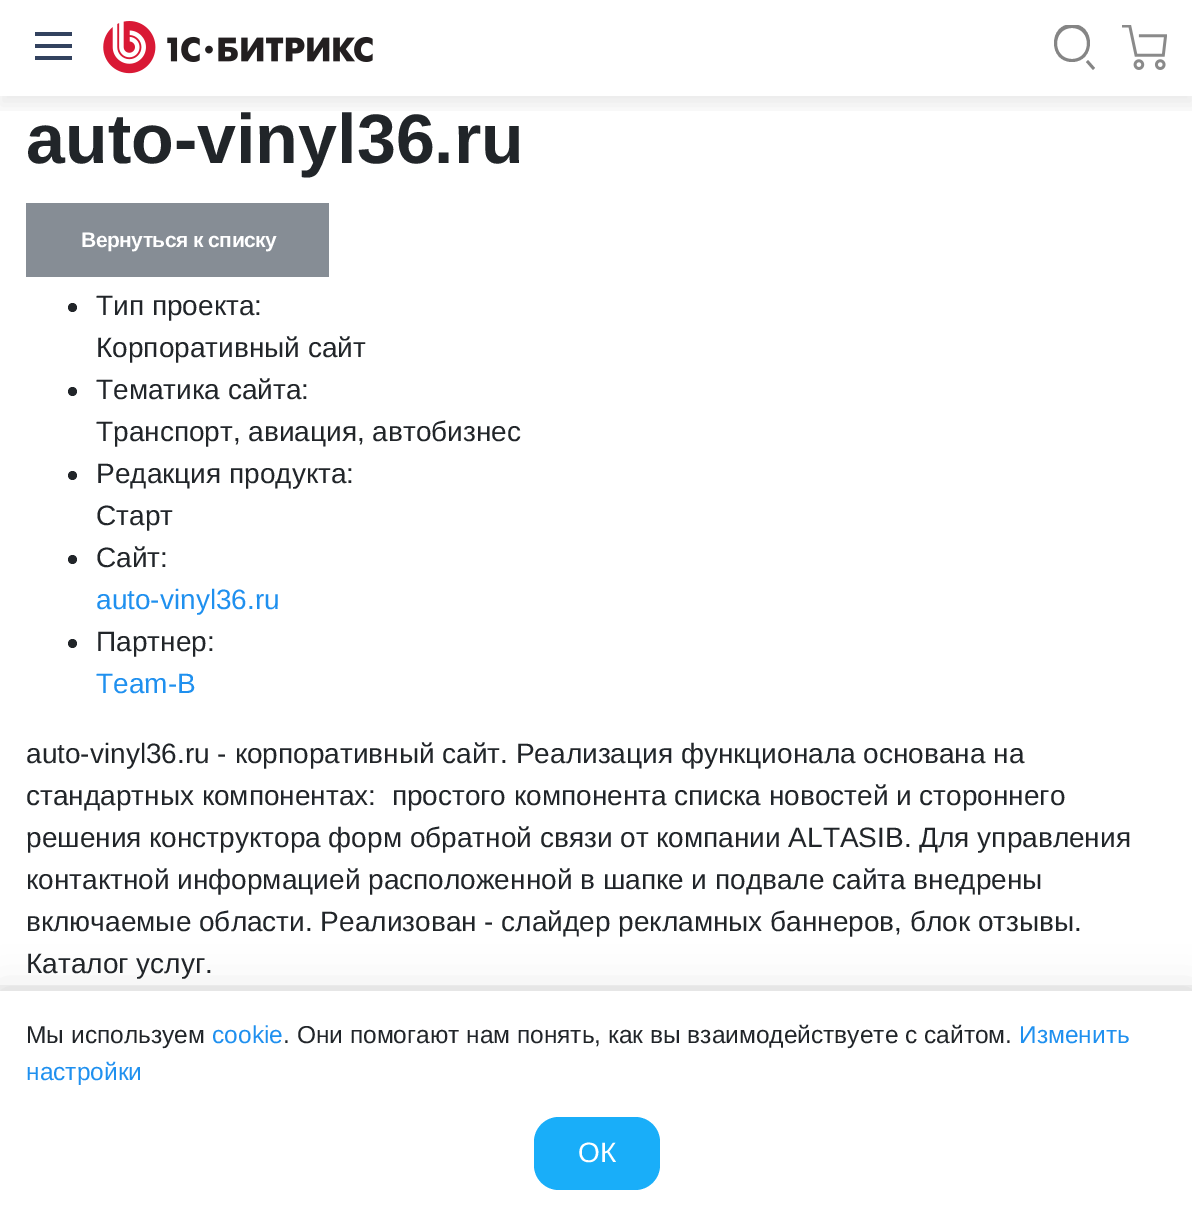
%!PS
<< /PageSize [1192 1216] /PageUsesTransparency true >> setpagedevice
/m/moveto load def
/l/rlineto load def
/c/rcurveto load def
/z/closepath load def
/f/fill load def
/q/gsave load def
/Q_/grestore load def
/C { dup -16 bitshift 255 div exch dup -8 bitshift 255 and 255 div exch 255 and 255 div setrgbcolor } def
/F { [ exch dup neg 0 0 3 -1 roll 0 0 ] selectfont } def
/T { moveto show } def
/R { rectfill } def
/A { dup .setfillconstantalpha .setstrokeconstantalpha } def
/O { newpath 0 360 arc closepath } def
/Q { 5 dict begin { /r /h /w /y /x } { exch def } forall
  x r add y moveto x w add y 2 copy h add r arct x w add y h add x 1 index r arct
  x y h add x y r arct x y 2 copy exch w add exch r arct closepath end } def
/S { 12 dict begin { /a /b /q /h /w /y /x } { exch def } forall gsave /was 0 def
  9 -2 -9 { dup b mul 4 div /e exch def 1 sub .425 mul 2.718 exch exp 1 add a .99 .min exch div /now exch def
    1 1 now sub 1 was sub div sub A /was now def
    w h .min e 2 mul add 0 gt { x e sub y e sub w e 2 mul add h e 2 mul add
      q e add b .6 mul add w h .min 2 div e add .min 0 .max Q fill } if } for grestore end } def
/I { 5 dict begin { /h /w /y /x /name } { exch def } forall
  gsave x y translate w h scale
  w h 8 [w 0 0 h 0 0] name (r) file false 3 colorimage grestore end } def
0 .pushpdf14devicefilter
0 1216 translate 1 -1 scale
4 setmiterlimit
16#FFFFFF C
0 0 1192 1216 R
q
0 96 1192 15 rectclip
16#000000 C
0 7 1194 98 0 9 .08 S
Q_
16#32425F C
35 44 37 4 R
35 32 37 4 R
35 56 37 4 R
(1.rgb) 103 21 270 53 I
q
1054 25 42 45 rectclip
16#858585 C
1072 62 m -24 0 -24 -38 0 -38 c 24 0 24 38 0 38 c z 1072 28 m -20 0 -20 31 0 31 c 20 0 20 -31 0 -31 c z 1095 68 m -2 2 l -7 -8 l 2 -2 l z eofill
Q_
(2.rgb) 1122 25 45 45 I
/LiberationSans-Bold 70 F
16#212529 C
(auto-vinyl36.ru) 26 163 T
16#868D95 C
26 203 303 74 R
/LiberationSans-Bold 21 F
16#FFFFFF C
81 247 m -.5 0 (Вернуться к списку) ashow
16#212529 C
72.5 307.5 4.5 O f
/LiberationSans-Regular 28 F
(Тип проекта:) 96 315 T
(Корпоративный сайт) 96 357 T
72.5 391.5 4.5 O f
(Тематика сайта:) 96 399 T
(Транспорт, авиация, автобизнес) 96 441 T
72.5 475.5 4.5 O f
(Редакция продукта:) 96 483 T
(Старт) 96 525 T
72.5 559.5 4.5 O f
(Сайт:) 96 567 T
16#1F90EF C
(auto-vinyl36.ru) 96 609 T
16#212529 C
72.5 643.5 4.5 O f
(Партнер:) 96 651 T
16#1F90EF C
(Team-B) 96 693 T
16#212529 C
(auto-vinyl36.ru - корпоративный сайт. Реализация функционала основана на) 26 763 T
(стандартных компонентах:  простого компонента списка новостей и стороннего) 26 805 T
(решения конструктора форм обратной связи от компании ALTASIB. Для управления) 26 847 T
(контактной информацией расположенной в шапке и подвале сайта внедрены) 26 889 T
(включаемые области. Реализован - слайдер рекламных баннеров, блок отзывы.) 26 931 T
(Каталог услуг.) 26 973 T
16#F3F3F3 C
0 985 1192 6 R
16#000000 C
0 991 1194 225 0 21 .1 S
16#FFFFFF C
0 991 1192 225 R
/LiberationSans-Regular 24.5 F
16#212529 C
(Мы используем) 26 1043 T
16#1F90EF C
(cookie) 212 1043 T
16#212529 C
(. Они помогают нам понять, как вы взаимодействуете с сайтом.) 283 1043 T
16#1F90EF C
(Изменить) 1019 1043 T
(настройки) 26 1080 T
16#19AEF9 C
534 1117 126 73 25 Q f
/LiberationSans-Regular 28 F
16#FFFFFF C
(ОК) 578 1162 T
.poppdf14devicefilter showpage
